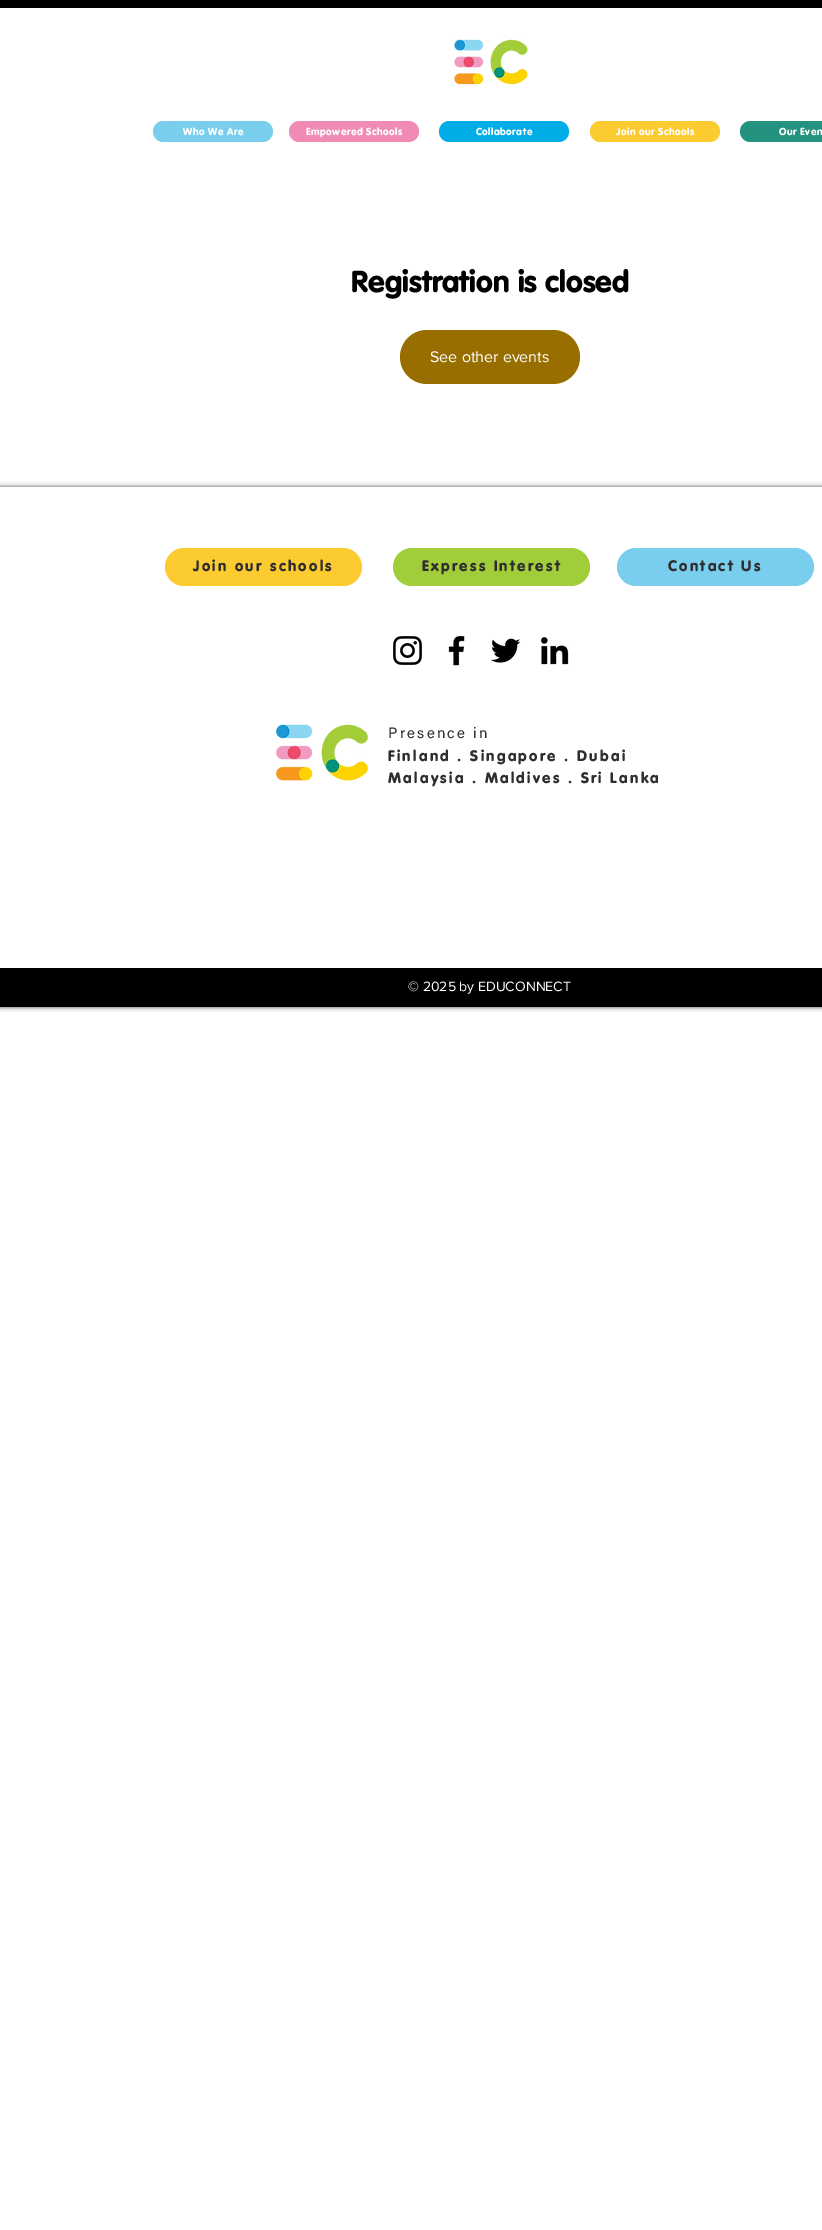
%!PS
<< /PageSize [822 2230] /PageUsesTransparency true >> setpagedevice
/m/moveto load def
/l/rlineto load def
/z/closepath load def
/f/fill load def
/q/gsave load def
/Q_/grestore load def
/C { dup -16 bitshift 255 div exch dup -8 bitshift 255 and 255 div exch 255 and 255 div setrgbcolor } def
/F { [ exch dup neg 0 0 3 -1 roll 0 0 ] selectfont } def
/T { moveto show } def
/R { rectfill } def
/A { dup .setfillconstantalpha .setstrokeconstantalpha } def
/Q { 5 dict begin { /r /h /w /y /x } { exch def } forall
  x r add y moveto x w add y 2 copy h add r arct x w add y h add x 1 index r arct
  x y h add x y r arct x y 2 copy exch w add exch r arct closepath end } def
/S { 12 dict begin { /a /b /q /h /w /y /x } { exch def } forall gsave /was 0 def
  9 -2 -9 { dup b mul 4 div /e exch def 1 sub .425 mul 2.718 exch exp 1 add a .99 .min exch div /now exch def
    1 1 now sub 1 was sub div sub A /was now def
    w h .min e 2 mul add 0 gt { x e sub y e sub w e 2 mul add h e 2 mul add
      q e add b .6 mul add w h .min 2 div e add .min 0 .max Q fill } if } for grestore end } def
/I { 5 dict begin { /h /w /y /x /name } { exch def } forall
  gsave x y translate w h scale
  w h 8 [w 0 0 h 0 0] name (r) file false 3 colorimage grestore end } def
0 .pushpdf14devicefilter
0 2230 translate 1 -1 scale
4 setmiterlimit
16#FFFFFF C
0 0 822 2230 R
16#000000 C
0 0 822 8 R
(1.rgb) 454 39 74 46 I
16#7ACEED C
153 121 120 21 10.5 Q f
/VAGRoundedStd-Black 10 F
16#FFFFFF C
183 135 m .5 0 (Who We Are) ashow
16#F08BB5 C
289 121 130 21 10.5 Q f
16#FFFFFF C
306 135 m .5 0 (Empowered Schools) ashow
16#00ADE6 C
439 121 130 21 10.5 Q f
16#FFFFFF C
476 135 m .5 0 (Collaborate) ashow
16#FCCB2F C
590 121 130 21 10.5 Q f
16#FFFFFF C
616 135 m .5 0 (Join our Schools) ashow
16#23927E C
740 121 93 21 10.5 Q f
16#FFFFFF C
779 135 m .5 0 (Our Even) ashow
/VAGRoundedStd-Black 30 F
16#000000 C
(Registration is closed) 351 292 T
16#996E00 C
400 330 180 54 27 Q f
/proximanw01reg-Regular 16 F
16#FFFFFF C
(See other events) 430 362 T
q
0 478 m 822 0 l 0 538 l -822 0 l z 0 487 m 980 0 l 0 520 l -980 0 l z eoclip newpath
16#000000 C
0 487 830 520 0 2.5 .7 S
Q_
16#FCCB2F C
165 548 197 38 19 Q f
/VAGRoundedStd-Black 15 F
16#2F2E2E C
193 571 m 2.25 0 (Join our schools) ashow
16#A2CD3A C
393 548 197 38 19 Q f
16#2F2E2E C
422 571 m 2.25 0 (Express Interest) ashow
16#7ACEED C
617 548 197 38 19 Q f
16#2F2E2E C
668 571 m 2.25 0 (Contact Us) ashow
(2.rgb) 393 636 29 29 I
(3.rgb) 448 636 17 30 I
(4.rgb) 491 638 30 25 I
(5.rgb) 540 637 29 28 I
(6.rgb) 276 724 92 57 I
/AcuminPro-Regular 15 F
388 738 m 2.25 0 (Presence in) ashow
/VAGRoundedStd-Black 15 F
388 761 m 2.25 0 (Finland . Singapore . Dubai) ashow
388 783 m 2.25 0 (Malaysia . Maldives . Sri Lanka) ashow
16#000000 C
0 968 822 39 R
/proximanw01reg-Regular 14 F
16#FFFFFF C
(© 2025 by EDUCONNECT) 408 991 T
.poppdf14devicefilter showpage
